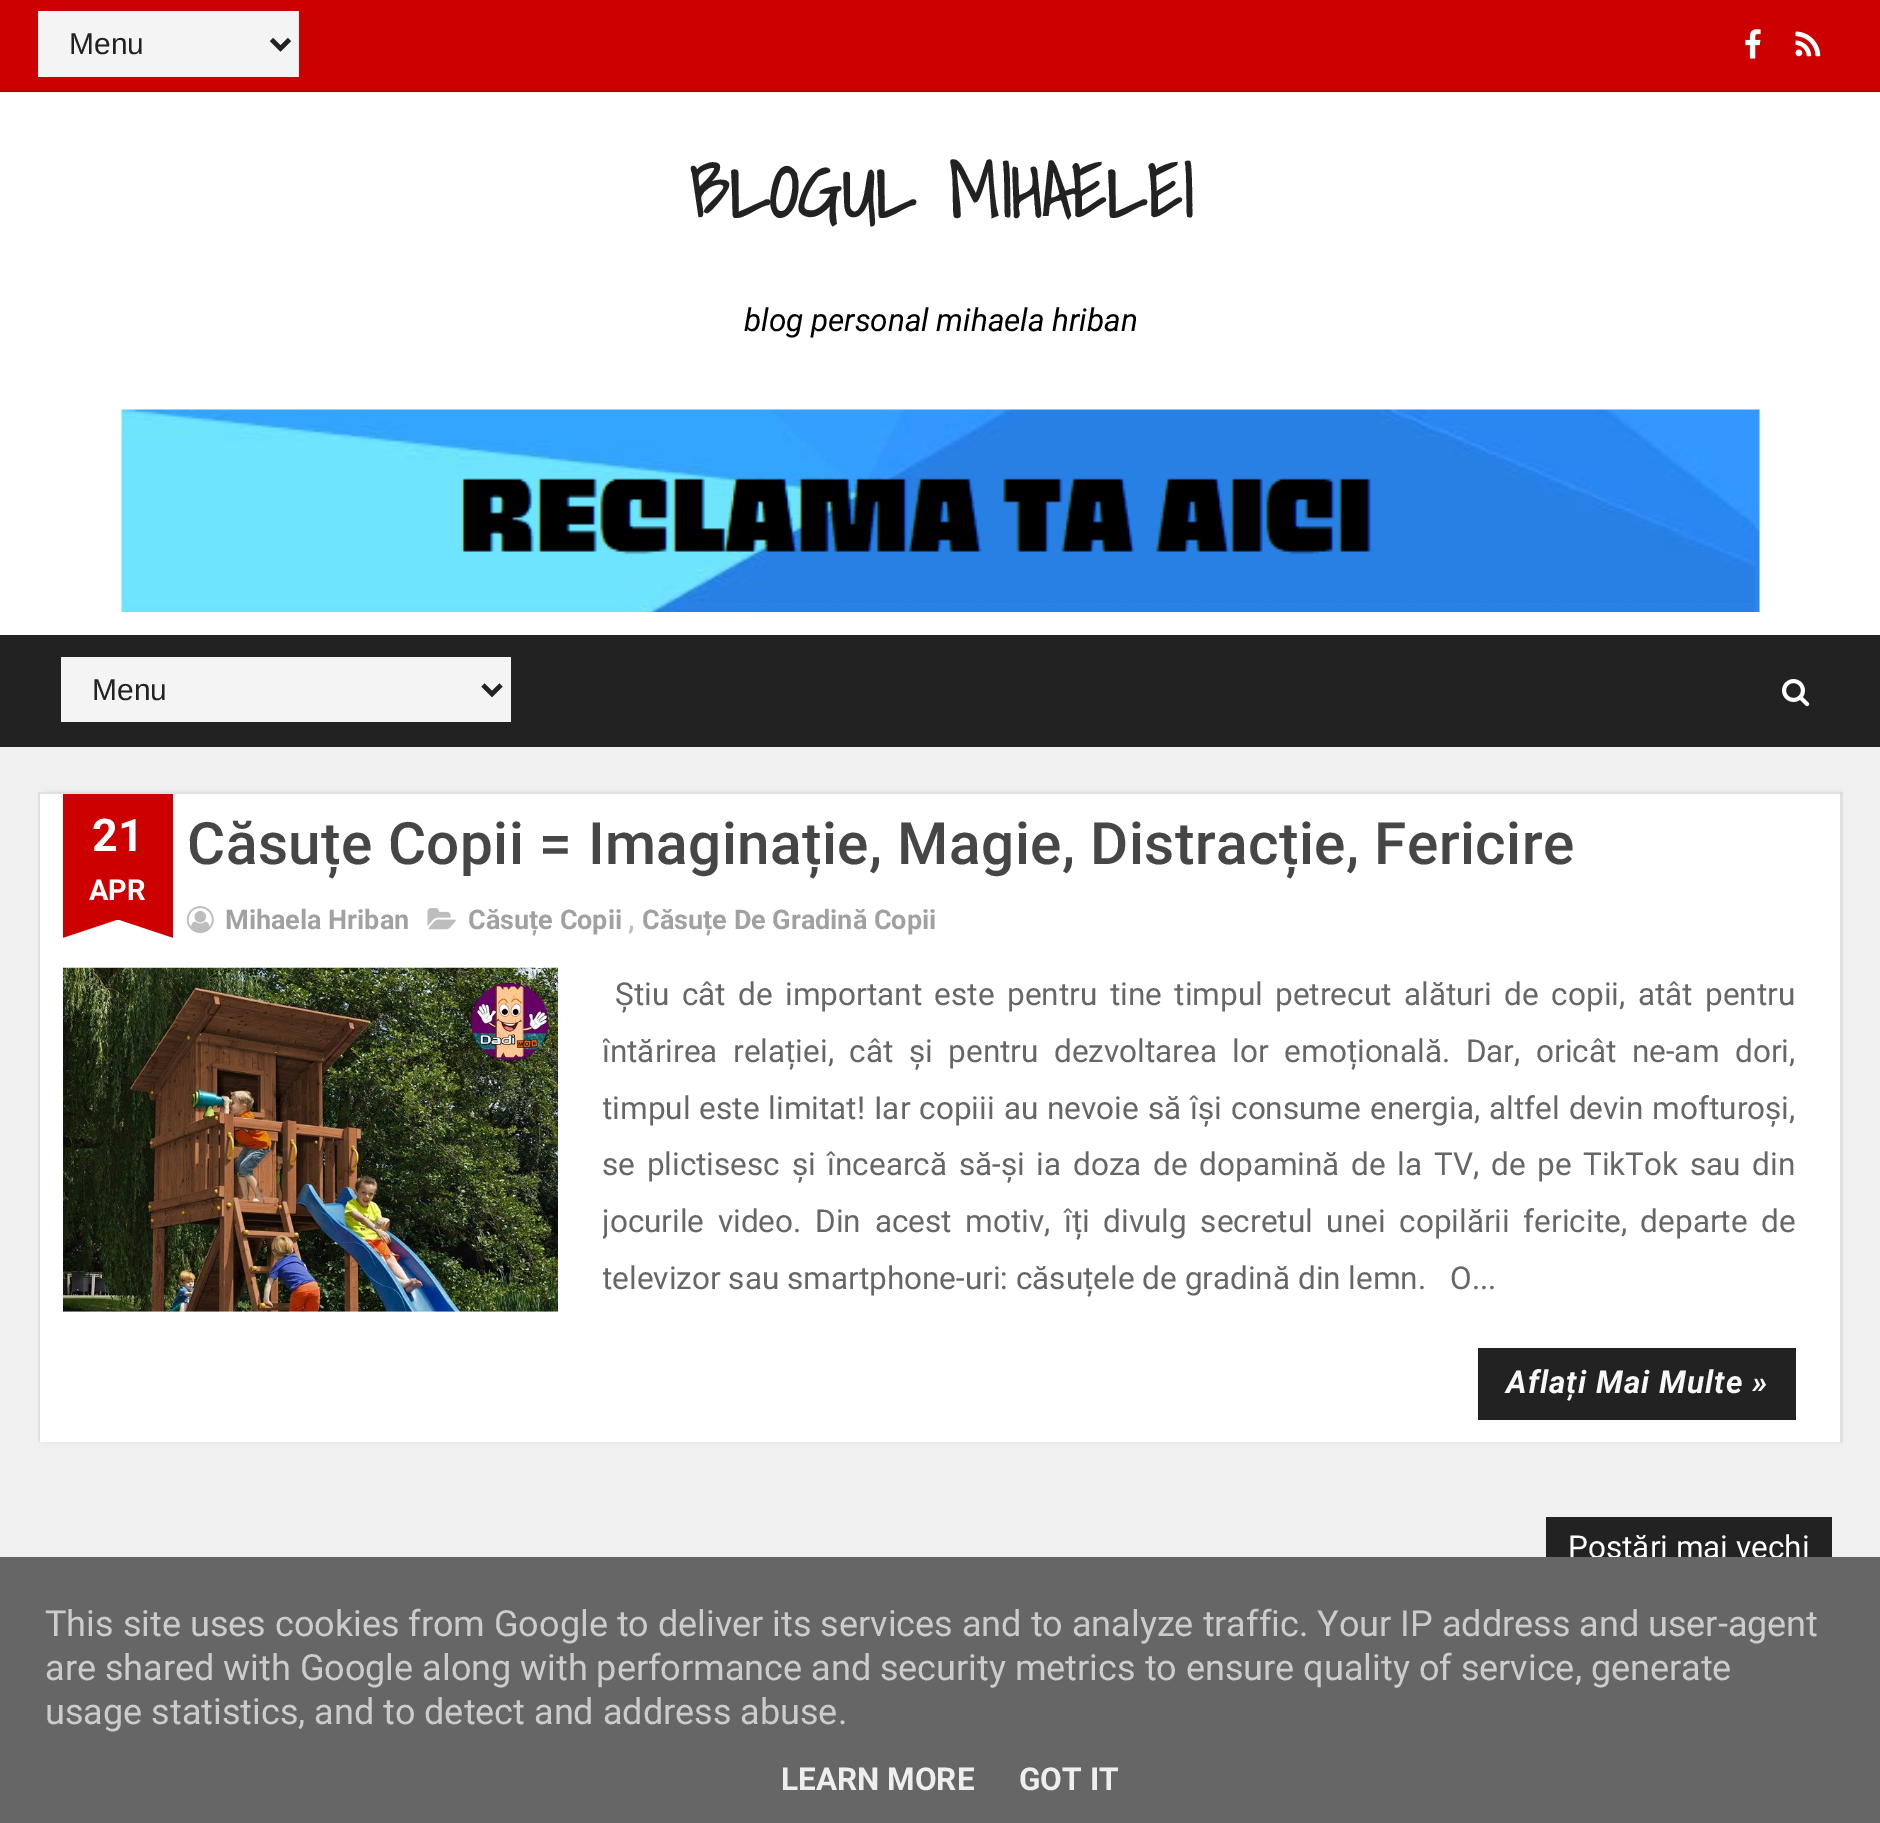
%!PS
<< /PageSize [1880 1823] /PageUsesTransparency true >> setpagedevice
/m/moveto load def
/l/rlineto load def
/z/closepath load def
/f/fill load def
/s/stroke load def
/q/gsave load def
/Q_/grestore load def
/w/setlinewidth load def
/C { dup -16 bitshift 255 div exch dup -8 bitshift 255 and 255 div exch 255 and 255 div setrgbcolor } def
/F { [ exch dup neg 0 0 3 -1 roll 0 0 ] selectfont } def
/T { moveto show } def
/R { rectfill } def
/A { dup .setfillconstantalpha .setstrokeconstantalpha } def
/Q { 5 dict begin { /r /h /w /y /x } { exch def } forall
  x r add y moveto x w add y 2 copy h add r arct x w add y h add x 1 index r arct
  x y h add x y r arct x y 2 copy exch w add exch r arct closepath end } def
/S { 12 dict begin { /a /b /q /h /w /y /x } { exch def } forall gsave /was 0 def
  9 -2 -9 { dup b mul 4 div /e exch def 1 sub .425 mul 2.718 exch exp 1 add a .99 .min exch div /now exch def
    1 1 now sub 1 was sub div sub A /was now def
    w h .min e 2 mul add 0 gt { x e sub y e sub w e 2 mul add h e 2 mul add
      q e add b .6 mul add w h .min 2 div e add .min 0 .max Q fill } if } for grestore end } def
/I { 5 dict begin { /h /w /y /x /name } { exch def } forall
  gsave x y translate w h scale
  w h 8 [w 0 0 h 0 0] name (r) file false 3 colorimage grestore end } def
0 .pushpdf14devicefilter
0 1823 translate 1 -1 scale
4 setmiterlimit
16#F0F0F0 C
0 0 1880 1823 R
16#CC0000 C
0 0 1880 90 R
16#B40000 C
0 90 1880 2 R
16#F4F4F4 C
38 11 261 66 R
16#222222 C
4.5 w
271.5 39.5 m 9 9 l 9 -9 l s
/LiberationSans-Regular 30 F
(Menu) 69 54 T
(1.rgb) 1745 29 16 30 I
(2.rgb) 1795 31 26 26 I
16#FFFFFF C
0 92 1880 543 R
/ShadowsIntoLight-Bold 74.25 F
16#222222 C
(BLOGUL MIHAELEI) 689 218 T
/Roboto-Italic 31.5 F
16#000000 C
(blog personal mihaela hriban) 744 331 T
(3.rgb) 121 409 1639 203 I
16#222222 C
0 635 1880 112 R
16#F4F4F4 C
61 657 450 65 R
16#222222 C
483 685 m 9 9 l 9 -9 l s
/LiberationSans-Regular 30 F
(Menu) 92 700 T
(4.rgb) 1782 679 28 28 I
q
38 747 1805 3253 rectclip
16#000000 C
45 792 1805 650 0 3.5 .05 S
Q_
16#FFFFFF C
38 792 1805 650 R
16#E0E0E0 C
38 792 m 1805 0 l -3 2 l -1800 0 l z f
0.12 A
16#000000 C
1843 792 m 0 650 l -3 0 l 0 -648 l z f
38 1442 m 0 -650 l 2 2 l 0 648 l z f
1 A
16#CC0000 C
63 794 110 144 R
/Roboto-Bold 45 F
16#FFFFFF C
(21) 92 851 T
/Roboto-Bold 29 F
(APR) 89 900 T
173 938 m -110 0 l 54 -18 l 2 0 l z f
/Roboto-Medium 58.5 F
16#464646 C
187 864 m .45 0 (Căsuțe Copii = Imaginație, Magie, Distracție, Fericire) ashow
(5.rgb) 187 906 27 28 I
/Roboto-Bold 27 F
16#A1A1A1 C
(Mihaela Hriban) 225 929 T
(6.rgb) 427 908 29 22 I
(Căsuțe Copii) 468 929 T
16#BDBDBD C
(,) 628 929 T
16#A1A1A1 C
(Căsuțe De Gradină Copii) 642 929 T
(7.rgb) 63 967 495 345 I
/Roboto-Regular 31.5 F
16#666666 C
615 1005 m 4.75 0 32 (Știu cât de important este pentru tine timpul petrecut alături de copii, atât pentru) widthshow
q
603 968 1215 452 rectclip
602 1062 m 7.75 0 32 (întărirea relației, cât și pentru dezvoltarea lor emoțională. Dar, oricât ne-am dori,) widthshow
602 1119 m 1.25 0 32 (timpul este limitat! Iar copiii au nevoie să își consume energia, altfel devin mofturoși,) widthshow
Q_
602 1175 m 3.9 0 32 (se plictisesc și încearcă să-și ia doza de dopamină de la TV, de pe TikTok sau din) widthshow
q
603 968 1215 452 rectclip
602 1232 m 5.9 0 32 (jocurile video. Din acest motiv, îți divulg secretul unei copilării fericite, departe de) widthshow
(televizor sau smartphone-uri: căsuțele de gradină din lemn.) 602 1289 T
Q_
(O...) 1450 1289 T
16#222222 C
1478 1348 318 72 R
/Roboto-BoldItalic 31.5 F
16#F7F7F7 C
1506 1393 m 1.1 0 (Aflați Mai Multe ») ashow
16#222222 C
1546 1517 286 40 R
/Roboto-Regular 31.5 F
16#FFFFFF C
(Postări mai vechi) 1568 1558 T
16#666666 C
0 1557 1880 266 R
/Roboto-Regular 36 F
16#CCCCCC C
(This site uses cookies from Google to deliver its services and to analyze traffic. Your IP address and user-agent) 45 1636 T
(are shared with Google along with performance and security metrics to ensure quality of service, generate) 45 1680 T
(usage statistics, and to detect and address abuse.) 45 1724 T
/Roboto-Bold 31.5 F
16#EEEEEE C
(LEARN MORE) 781 1790 T
(GOT IT) 1019 1790 T
.poppdf14devicefilter showpage
